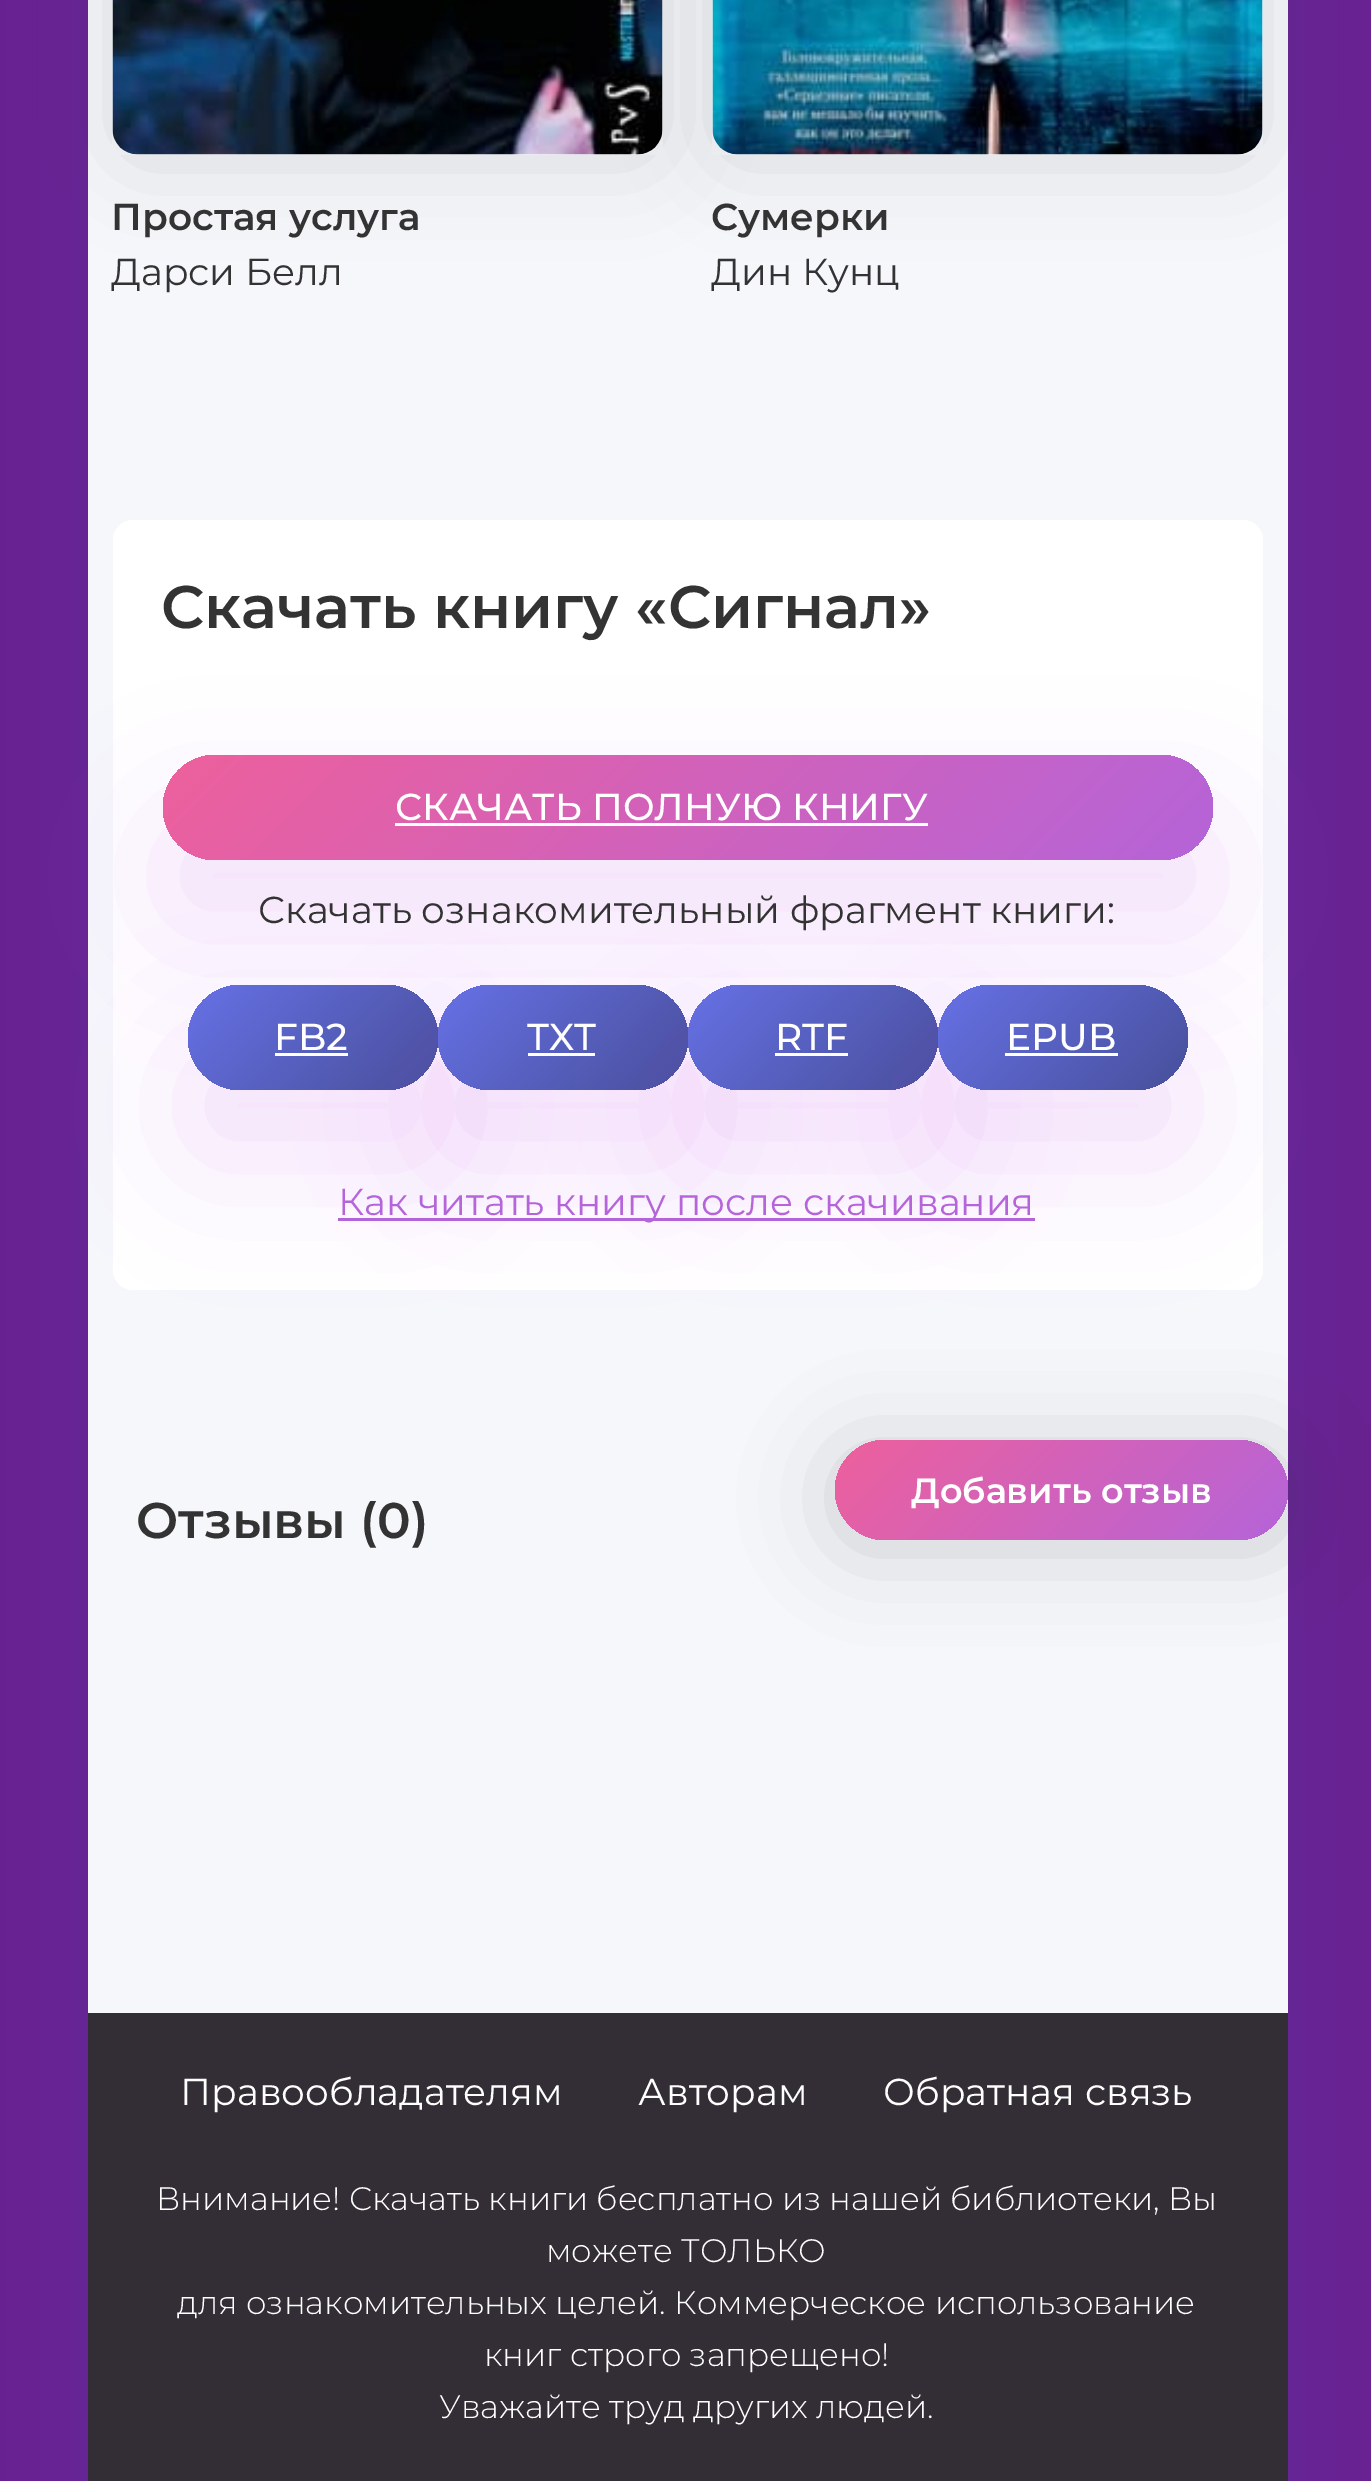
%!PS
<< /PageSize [1371 2481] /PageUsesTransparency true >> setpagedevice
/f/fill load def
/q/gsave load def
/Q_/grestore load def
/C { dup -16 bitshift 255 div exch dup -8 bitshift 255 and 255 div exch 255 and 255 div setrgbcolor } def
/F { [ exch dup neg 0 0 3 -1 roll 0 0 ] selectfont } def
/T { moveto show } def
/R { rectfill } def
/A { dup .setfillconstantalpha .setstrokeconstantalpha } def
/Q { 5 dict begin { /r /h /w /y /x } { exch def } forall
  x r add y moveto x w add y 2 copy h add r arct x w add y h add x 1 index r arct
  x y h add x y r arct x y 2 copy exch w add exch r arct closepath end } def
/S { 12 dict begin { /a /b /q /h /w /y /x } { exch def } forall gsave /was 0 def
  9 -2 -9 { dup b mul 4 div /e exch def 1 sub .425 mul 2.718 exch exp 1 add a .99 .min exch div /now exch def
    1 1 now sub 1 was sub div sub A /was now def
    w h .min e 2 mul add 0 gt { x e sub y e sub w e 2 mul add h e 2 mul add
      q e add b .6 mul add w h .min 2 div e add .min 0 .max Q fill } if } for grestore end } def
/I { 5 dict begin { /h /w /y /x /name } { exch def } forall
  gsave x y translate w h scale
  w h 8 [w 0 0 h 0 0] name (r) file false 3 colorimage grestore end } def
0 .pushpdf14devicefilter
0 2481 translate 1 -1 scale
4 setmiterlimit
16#68218F C
0 0 1371 2481 R
16#4554E1 C
88 -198 1200 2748 0 66 .15 S
16#F5F7FB C
88 0 1200 2013 R
16#333333 C
113 -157 550 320 25 44 .15 S
(1.rgb) 112 0 551 155 I
/Montserrat-SemiBold 37.5 F
(Простая услуга) 111 230 T
/Montserrat-Regular 37.5 F
(Дарси Белл) 111 285 T
713 -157 550 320 25 44 .15 S
(2.rgb) 712 0 551 155 I
/Montserrat-SemiBold 37.5 F
(Сумерки) 711 230 T
/Montserrat-Regular 37.5 F
(Дин Кунц) 711 285 T
16#FFFFFF C
113 520 1150 770 20 Q f
/Montserrat-SemiBold 60 F
16#333333 C
(Скачать книгу «Сигнал») 161 628 T
16#BA2AE5 C
163 823 1050 105 52.5 66 .15 S
q 163 755 1050 105 52.5 Q clip newpath
<< /ShadingType 2 /ColorSpace /DeviceRGB /Coords [399 519 976 1096] /Extend [true true] /Function << /FunctionType 2 /Domain [0 1] /C0 [.933 .376 .612] /C1 [.71 .392 .851] /N 1 >> >> shfill Q_
/Montserrat-Medium 37.5 F
16#FFFFFF C
(СКАЧАТЬ ПОЛНУЮ КНИГУ) 395 820 T
395 823 533 3 R
/Montserrat-Regular 37.5 F
16#333333 C
(Скачать ознакомительный фрагмент книги:) 258 923 T
16#B564D9 C
338 1218 697 3 R
16#BA2AE5 C
188 1053 250 105 52.5 66 .15 S
q 188 985 250 105 52.5 Q clip newpath
<< /ShadingType 2 /ColorSpace /DeviceRGB /Coords [224 949 401 1126] /Extend [true true] /Function << /FunctionType 2 /Domain [0 1] /C0 [.404 .443 .902] /C1 [.278 .314 .604] /N 1 >> >> shfill Q_
/Montserrat-Medium 37.5 F
16#FFFFFF C
(FB2) 274 1050 T
275 1053 73 3 R
16#BA2AE5 C
438 1053 250 105 52.5 66 .15 S
q 438 985 250 105 52.5 Q clip newpath
<< /ShadingType 2 /ColorSpace /DeviceRGB /Coords [474 949 651 1126] /Extend [true true] /Function << /FunctionType 2 /Domain [0 1] /C0 [.404 .443 .902] /C1 [.278 .314 .604] /N 1 >> >> shfill Q_
16#FFFFFF C
(TXT) 527 1050 T
528 1053 67 3 R
16#BA2AE5 C
688 1053 250 105 52.5 66 .15 S
q 688 985 250 105 52.5 Q clip newpath
<< /ShadingType 2 /ColorSpace /DeviceRGB /Coords [724 949 901 1126] /Extend [true true] /Function << /FunctionType 2 /Domain [0 1] /C0 [.404 .443 .902] /C1 [.278 .314 .604] /N 1 >> >> shfill Q_
16#FFFFFF C
(RTF) 775 1050 T
775 1053 73 3 R
16#BA2AE5 C
938 1053 250 105 52.5 66 .15 S
q 938 985 250 105 52.5 Q clip newpath
<< /ShadingType 2 /ColorSpace /DeviceRGB /Coords [974 949 1151 1126] /Extend [true true] /Function << /FunctionType 2 /Domain [0 1] /C0 [.404 .443 .902] /C1 [.278 .314 .604] /N 1 >> >> shfill Q_
16#FFFFFF C
(EPUB) 1006 1050 T
1005 1053 113 3 R
/Montserrat-Regular 37.5 F
16#B564D9 C
(Как читать книгу после скачивания) 338 1215 T
16#333333 C
835 1448 453 100 50 44 .2 S
q 835 1440 453 100 50 Q clip newpath
<< /ShadingType 2 /ColorSpace /DeviceRGB /Coords [923 1352 1199 1628] /Extend [true true] /Function << /FunctionType 2 /Domain [0 1] /C0 [.933 .376 .612] /C1 [.71 .392 .851] /N 1 >> >> shfill Q_
/Montserrat-SemiBold 35 F
16#FFFFFF C
(Добавить отзыв) 911 1503 T
/Montserrat-SemiBold 50 F
16#333333 C
(Отзывы \(0\)) 136 1538 T
16#332E35 C
88 2013 1200 468 R
/Montserrat-Regular 37.5 F
16#FFFFFF C
(Правообладателям) 180 2105 T
(Авторам) 638 2105 T
(Обратная связь) 883 2105 T
/Montserrat-Light 32.5 F
(Внимание! Скачать книги бесплатно из нашей библиотеки, Вы) 156 2210 T
(можете ТОЛЬКО) 546 2262 T
(для ознакомительных целей. Коммерческое использование) 177 2314 T
(книг строго запрещено!) 484 2366 T
(Уважайте труд других людей.) 439 2418 T
.poppdf14devicefilter showpage
